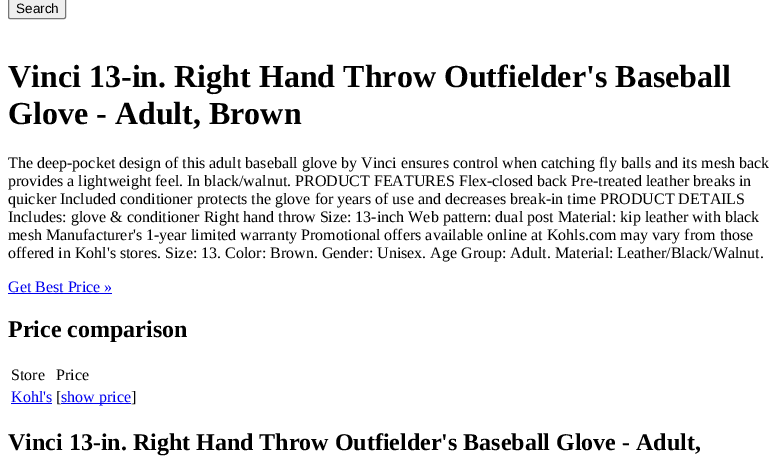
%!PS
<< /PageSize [784 472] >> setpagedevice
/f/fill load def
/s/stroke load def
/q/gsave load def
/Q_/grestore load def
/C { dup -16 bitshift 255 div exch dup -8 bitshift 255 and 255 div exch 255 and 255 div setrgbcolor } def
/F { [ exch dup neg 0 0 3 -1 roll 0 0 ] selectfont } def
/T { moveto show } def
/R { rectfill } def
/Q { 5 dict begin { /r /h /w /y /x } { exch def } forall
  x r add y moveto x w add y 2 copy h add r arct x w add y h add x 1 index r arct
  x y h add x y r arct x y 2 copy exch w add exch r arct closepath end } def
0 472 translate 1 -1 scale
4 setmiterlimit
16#FFFFFF C
0 0 784 472 R
16#EFEFEF C
8.5 -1.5 57 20 1.5 Q q f Q_
16#767676 C
s
/LiberationSans-Regular 13.5 F
16#000000 C
(Search) 16 13 T
/LiberationSerif-Bold 32 F
(Vinci 13-in. Right Hand Throw Outfielder's Baseball) 8 87 T
(Glove - Adult, Brown) 8 124 T
/LiberationSerif-Regular 16 F
(The deep-pocket design of this adult baseball glove by Vinci ensures control when catching fly balls and its mesh back) 8 168 T
(provides a lightweight feel. In black/walnut. PRODUCT FEATURES Flex-closed back Pre-treated leather breaks in) 8 186 T
(quicker Included conditioner protects the glove for years of use and decreases break-in time PRODUCT DETAILS) 8 204 T
(Includes: glove & conditioner Right hand throw Size: 13-inch Web pattern: dual post Material: kip leather with black) 8 222 T
(mesh Manufacturer's 1-year limited warranty Promotional offers available online at Kohls.com may vary from those) 8 240 T
(offered in Kohl's stores. Size: 13. Color: Brown. Gender: Unisex. Age Group: Adult. Material: Leather/Black/Walnut.) 8 258 T
16#0000EE C
(Get Best Price ») 8 292 T
8 293 104 1 R
/LiberationSerif-Bold 24 F
16#000000 C
(Price comparison) 8 337 T
/LiberationSerif-Regular 16 F
(Store) 11 380 T
(Price) 56 380 T
16#0000EE C
(Kohl's) 11 402 T
11 403 41 1 R
16#000000 C
([) 56 402 T
16#0000EE C
61 403 70 1 R
(show price) 61 402 T
16#000000 C
(]) 131 402 T
/LiberationSerif-Bold 24 F
(Vinci 13-in. Right Hand Throw Outfielder's Baseball Glove - Adult,) 8 450 T
showpage
